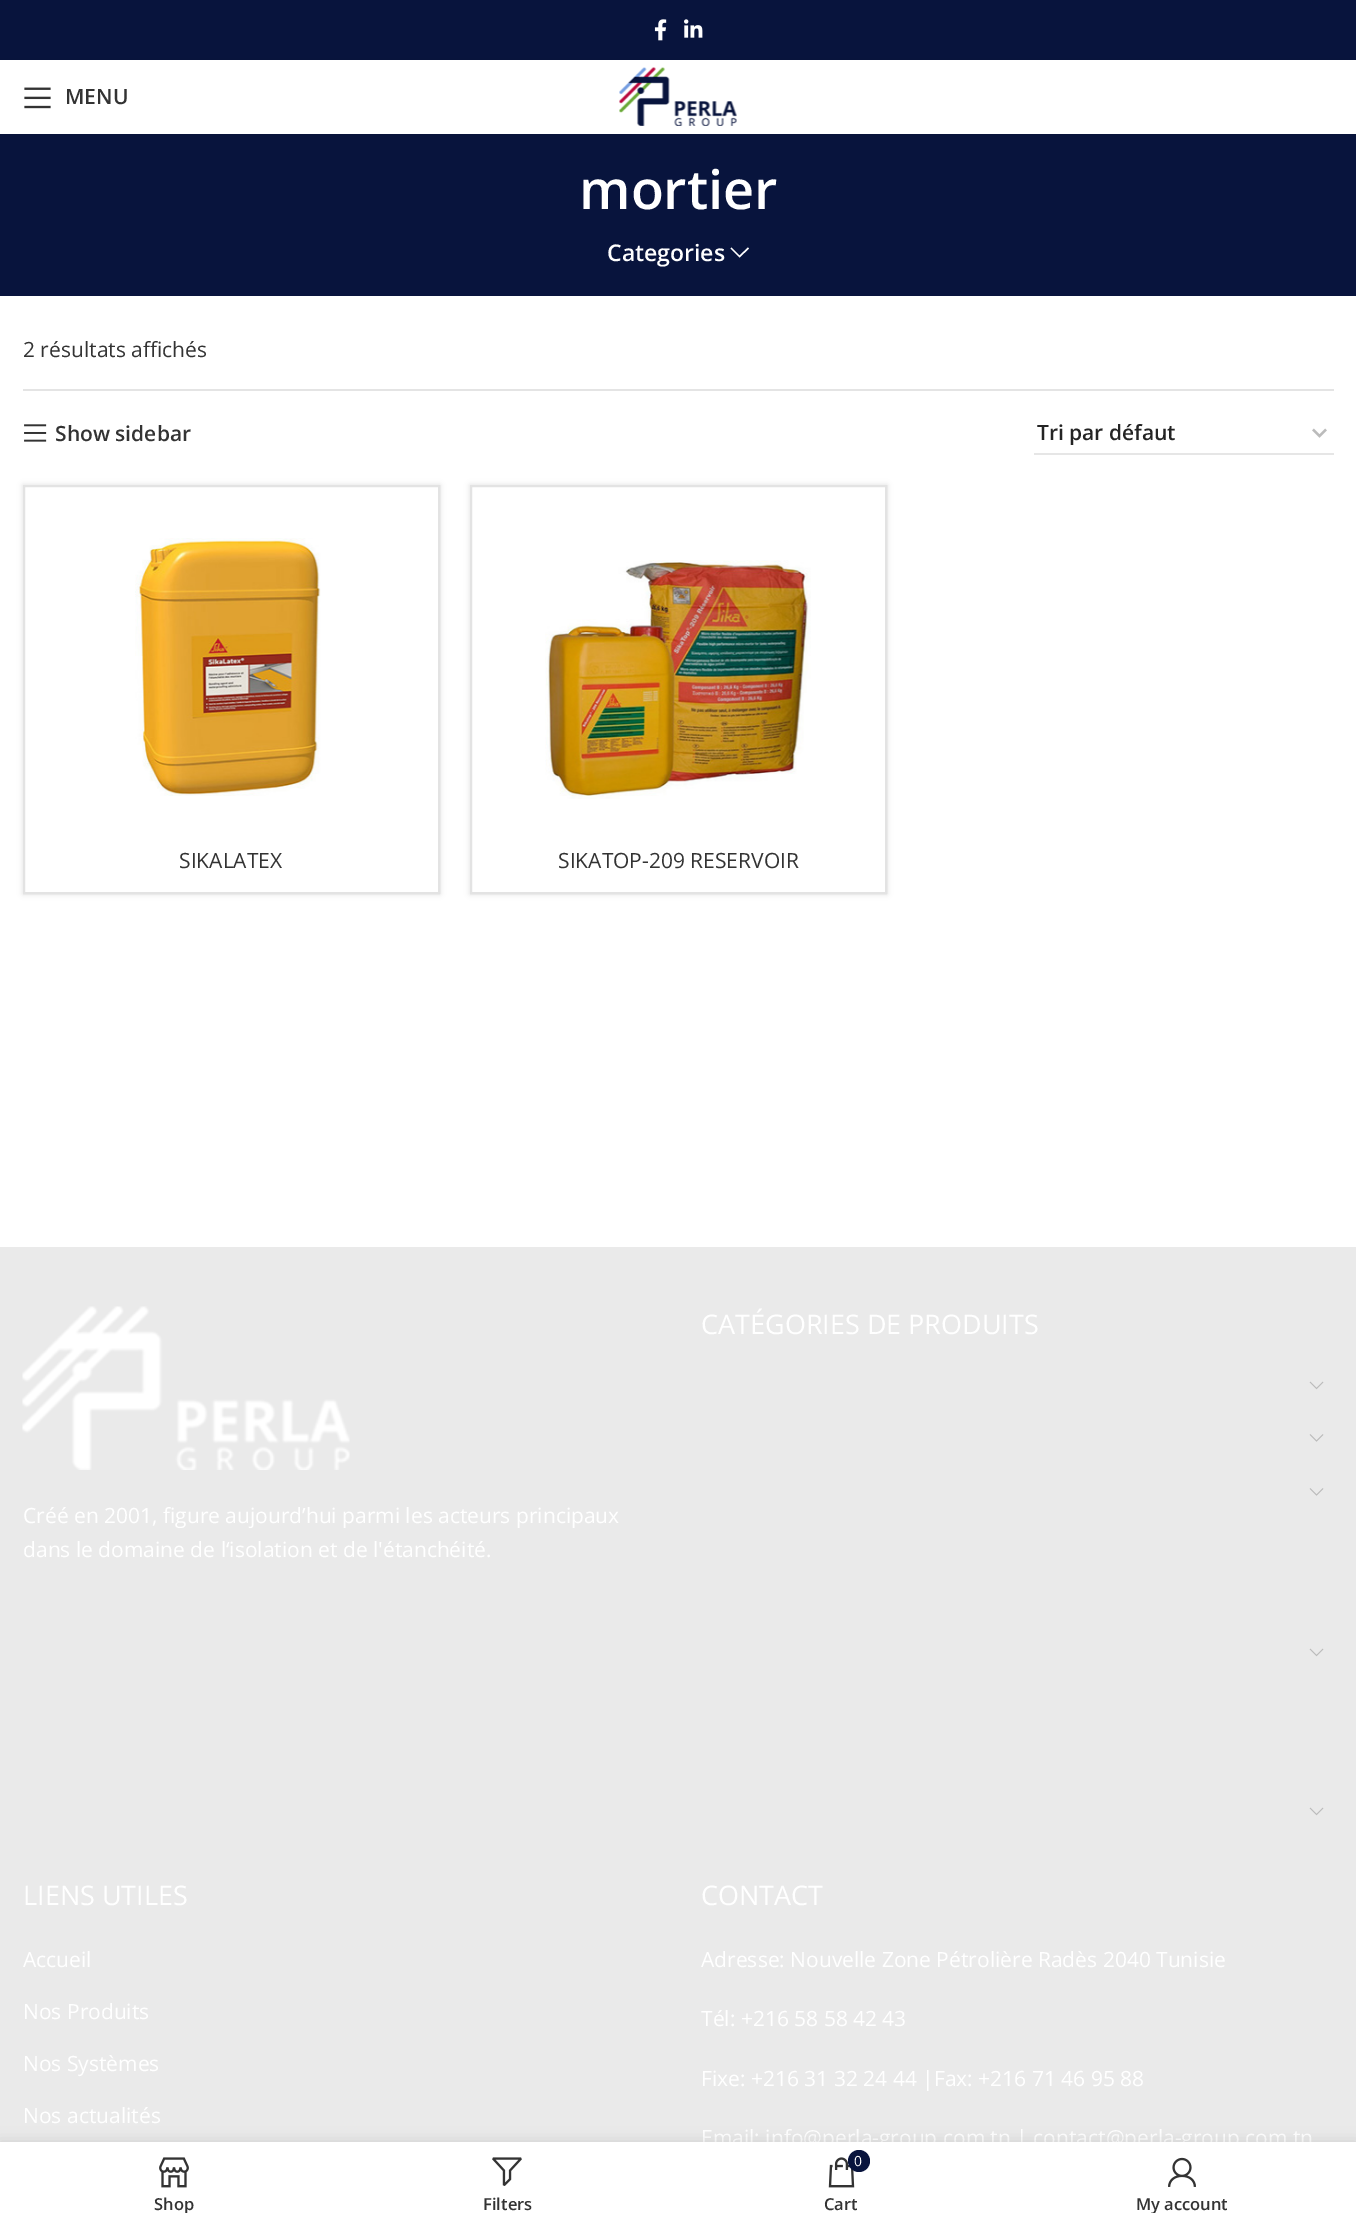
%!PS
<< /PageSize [1356 2224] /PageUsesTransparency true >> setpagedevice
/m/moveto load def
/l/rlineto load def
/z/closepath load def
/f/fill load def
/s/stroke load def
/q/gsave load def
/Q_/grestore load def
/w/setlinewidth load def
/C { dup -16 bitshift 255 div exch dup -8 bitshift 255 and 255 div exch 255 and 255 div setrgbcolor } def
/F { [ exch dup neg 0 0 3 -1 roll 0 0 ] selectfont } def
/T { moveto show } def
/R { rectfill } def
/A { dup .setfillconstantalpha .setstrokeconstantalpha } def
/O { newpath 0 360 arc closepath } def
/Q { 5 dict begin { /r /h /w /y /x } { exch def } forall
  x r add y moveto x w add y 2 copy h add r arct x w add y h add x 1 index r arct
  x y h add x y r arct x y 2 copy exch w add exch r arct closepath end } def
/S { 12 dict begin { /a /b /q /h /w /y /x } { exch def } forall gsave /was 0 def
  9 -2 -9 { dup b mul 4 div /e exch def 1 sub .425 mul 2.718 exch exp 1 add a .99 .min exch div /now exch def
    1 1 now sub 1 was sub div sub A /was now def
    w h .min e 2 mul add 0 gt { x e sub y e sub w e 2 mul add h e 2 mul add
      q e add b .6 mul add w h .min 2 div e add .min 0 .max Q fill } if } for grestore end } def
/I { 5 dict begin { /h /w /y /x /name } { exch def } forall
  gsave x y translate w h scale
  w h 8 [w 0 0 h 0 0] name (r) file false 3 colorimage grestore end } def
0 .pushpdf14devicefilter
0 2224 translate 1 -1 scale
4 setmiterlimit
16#FFFFFF C
0 0 1356 2224 R
16#08143D C
0 0 1356 60 R
(1.rgb) 654 19 13 22 I
(2.rgb) 684 19 19 19 I
0 134 1356 162 R
16#000000 C
0 62 1356 73 0 6 .1 S
16#FFFFFF C
0 60 1356 74 R
(3.rgb) 24 87 27 22 I
/OpenSans-SemiBold 21 F
16#333333 C
(MENU) 65 104 T
(4.rgb) 619 67 118 59 I
/OpenSans-SemiBold 54 F
16#FFFFFF C
(mortier) 579 209 T
/OpenSans-SemiBold 23 F
(Categories) 607 261 T
748 247.5 m -8.5 8 l -8 -8 l -1 1 l 9 9 l 9.5 -9 l z f
16#E4E4E4 C
23 389 1311 2 R
/OpenSans-Regular 21 F
16#333333 C
(2 résultats affichés) 23 357 T
(5.rgb) 24 424 23 18 I
/OpenSans-SemiBold 21 F
(Show sidebar) 55 441 T
16#BBBBBB C
2.2 w
1313 429.5 m 6.5 6.5 l 6.5 -6.5 l s
16#E6E6E6 C
1034 453 300 2 R
16#242424 C
(Tri par défaut) 1037 440 T
q
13 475 m 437 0 l 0 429 l -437 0 l z 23 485 m 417 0 l 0 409 l -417 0 l z eoclip newpath
16#000000 C
23 485 417 409 0 3 .12 S
Q_
0.11 A
16#000000 C
2 w
24 486 415 407 rectstroke
1 A
(6.rgb) 135 538 186 258 I
/OpenSans-Regular 21 F
16#333333 C
(SIKALATEX) 179 868 T
q
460 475 m 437 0 l 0 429 l -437 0 l z 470 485 m 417 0 l 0 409 l -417 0 l z eoclip newpath
16#000000 C
470 485 417 409 0 3 .12 S
Q_
0.11 A
16#000000 C
471 486 415 407 rectstroke
1 A
(7.rgb) 545 560 266 239 I
16#333333 C
(SIKATOP-209 RESERVOIR) 558 868 T
16#EAEAEA C
0 1247 1356 895 R
/OpenSans-Regular 27 F
16#FFFFFF C
(CATÉGORIES DE PRODUITS) 701 1334 T
(8.rgb) 1309 1381 15 9 I
(9.rgb) 1309 1434 15 8 I
(9.rgb) 1309 1488 15 8 I
(8.rgb) 1309 1648 15 9 I
(8.rgb) 1309 1807 15 9 I
(10.rgb) 22 1306 328 164 I
/OpenSans-Regular 21 F
(Créé en 2001, figure aujourd’hui parmi les acteurs principaux) 23 1523 T
(dans le domaine de l‘isolation et de l'étanchéité.) 23 1557 T
/OpenSans-Regular 27 F
(LIENS UTILES) 23 1905 T
/OpenSans-Regular 21 F
(Accueil) 23 1967 T
(Nos Produits) 23 2019 T
(Nos Systèmes) 23 2071 T
(Nos actualités) 23 2123 T
/OpenSans-Regular 27 F
(CONTACT) 701 1905 T
/OpenSans-Regular 21 F
(Adresse: Nouvelle Zone Pétrolière Radès 2040 Tunisie) 701 1967 T
(Tél: +216 58 58 42 43) 701 2026 T
(Fixe: +216 31 32 24 44 |Fax: +216 71 46 95 88) 701 2086 T
(Email: info@perla-group.com.tn | contact@perla-group.com.tn) 701 2145 T
16#000000 C
0 2142 1356 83 0 7 .12 S
16#FFFFFF C
0 2142 1356 82 R
(11.rgb) 159 2157 30 31 I
q
23 2193 303 20 rectclip
/OpenSans-SemiBold 16.5 F
16#333333 C
(Shop) 154 2210 T
Q_
(12.rgb) 492 2157 30 29 I
/OpenSans-SemiBold 16.5 F
16#333333 C
(Filters) 483 2210 T
(13.rgb) 828 2157 27 31 I
16#08143D C
859 2161 11 O f
/OpenSans-Regular 14 F
16#FFFFFF C
(0) 854 2166 T
/OpenSans-SemiBold 16.5 F
16#333333 C
(Cart) 824 2210 T
(14.rgb) 1168 2157 28 30 I
q
1031 2193 303 20 rectclip
(My account) 1136 2210 T
Q_
.poppdf14devicefilter showpage
